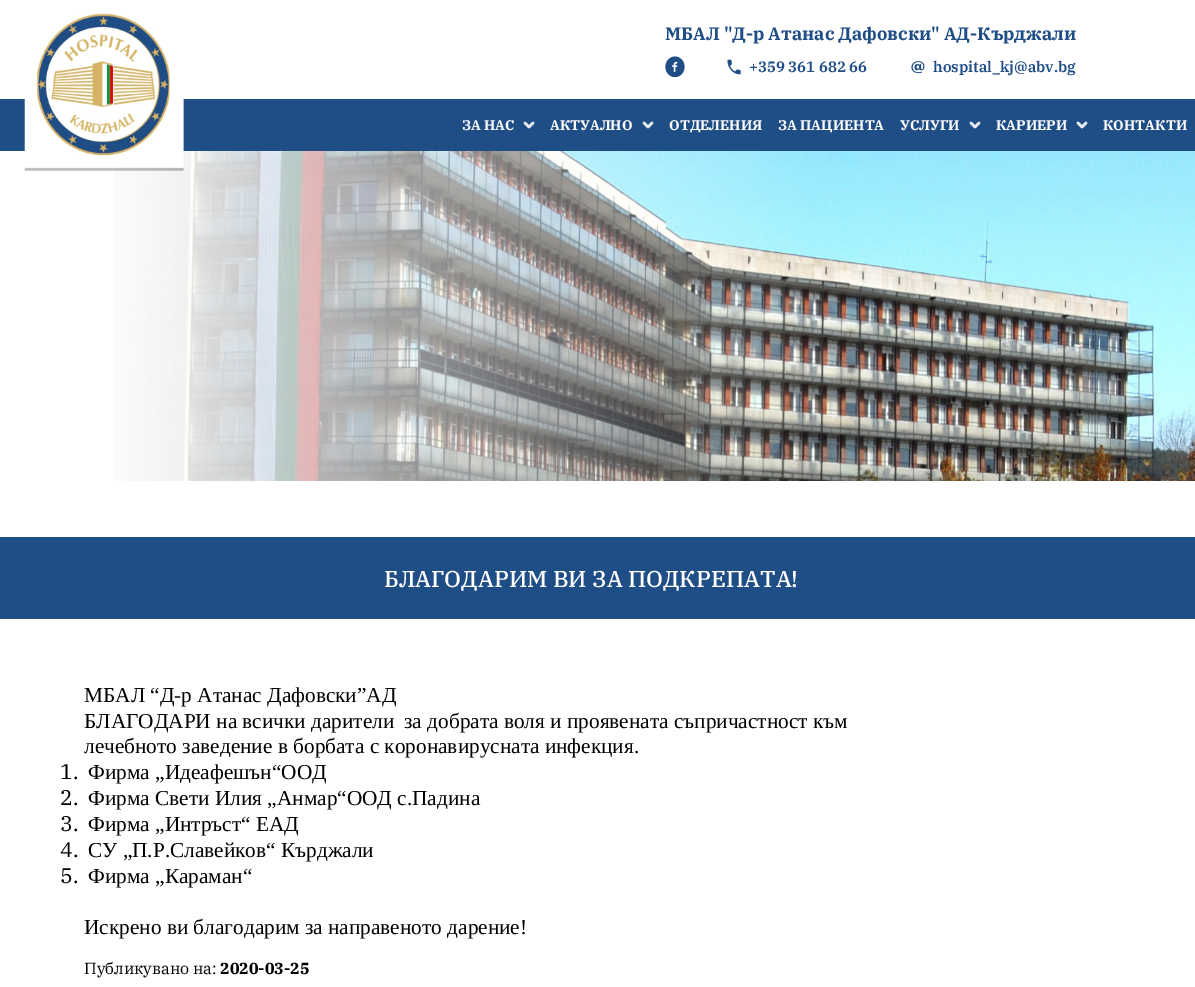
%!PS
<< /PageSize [1195 987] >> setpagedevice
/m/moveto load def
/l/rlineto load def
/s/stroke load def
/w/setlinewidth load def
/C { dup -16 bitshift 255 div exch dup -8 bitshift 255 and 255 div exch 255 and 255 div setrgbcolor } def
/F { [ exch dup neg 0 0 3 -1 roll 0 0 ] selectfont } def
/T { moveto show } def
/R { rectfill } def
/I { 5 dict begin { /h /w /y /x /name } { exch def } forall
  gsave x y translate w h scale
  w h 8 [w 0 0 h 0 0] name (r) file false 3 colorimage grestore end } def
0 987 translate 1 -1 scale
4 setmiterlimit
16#FFFFFF C
0 0 1195 987 R
16#1F4D85 C
0 99 1195 52 R
(5.rgb) 114 151 1081 330 I
(1.rgb) 24 13 160 158 I
/IBMPlexSerif-Bold 18 F
(МБАЛ "Д-р Атанас Дафовски" АД-Кърджали) 665 40 T
(2.rgb) 665 56 20 21 I
(3.rgb) 727 59 14 16 I
/IBMPlexSerif-SemiBold 15 F
(+359 361 682 66) 749 72 T
(4.rgb) 911 61 14 13 I
(hospital_kj@abv.bg) 933 72 T
/IBMPlexSerif-Bold 14 F
16#FFFFFF C
(ЗА НАС) 462 130 T
16#E9EDF3 C
2.5 w
1 setlinecap
1 setlinejoin
533 123 m -4 4 l -4 -4 l s
16#FFFFFF C
(АКТУАЛНО) 550 130 T
16#E9EDF3 C
652 123 m -4 4 l -4 -4 l s
16#FFFFFF C
(ОТДЕЛЕНИЯ) 669 130 T
(ЗА ПАЦИЕНТА) 778 130 T
(УСЛУГИ) 900 130 T
16#E9EDF3 C
979 123 m -4 4 l -4 -4 l s
16#FFFFFF C
(КАРИЕРИ) 996 130 T
16#E9EDF3 C
1086 123 m -4 4 l -4 -4 l s
16#FFFFFF C
(КОНТАКТИ) 1103 130 T
16#1F4D85 C
0 537 1195 82 R
/IBMPlexSerif-Medium 23 F
16#FFFFFF C
(БЛАГОДАРИМ ВИ ЗА ПОДКРЕПАТА!) 384 587 T
/LiberationSerif-Regular 21.3 F
16#000000 C
(МБАЛ “Д-р Атанас Дафовски”АД) 84 702 T
(БЛАГОДАРИ на всички дарители) 84 728 T
(за добрата воля и проявената съпричастност към) 404 728 T
(лечебното заведение в борбата с коронавирусната инфекция.) 84 753 T
/IBMPlexSerif-Regular 21.3 F
(1.) 60 779 T
/LiberationSerif-Regular 21.3 F
(Фирма „Идеафешън“ООД) 88 779 T
/IBMPlexSerif-Regular 21.3 F
(2.) 60 805 T
/LiberationSerif-Regular 21.3 F
(Фирма Свети Илия „Анмар“ООД с.Падина) 88 805 T
/IBMPlexSerif-Regular 21.3 F
(3.) 60 831 T
/LiberationSerif-Regular 21.3 F
(Фирма „Интръст“ ЕАД) 88 831 T
/IBMPlexSerif-Regular 21.3 F
(4.) 60 857 T
/LiberationSerif-Regular 21.3 F
(СУ „П.Р.Славейков“ Кърджали) 88 857 T
/IBMPlexSerif-Regular 21.3 F
(5.) 60 883 T
/LiberationSerif-Regular 21.3 F
(Фирма „Караман“) 88 883 T
(Искрено ви благодарим за направеното дарение!) 84 934 T
/IBMPlexSerif-Regular 16 F
(Публикувано на:) 84 974 T
/IBMPlexSerif-Bold 16 F
(2020-03-25) 220 974 T
showpage
